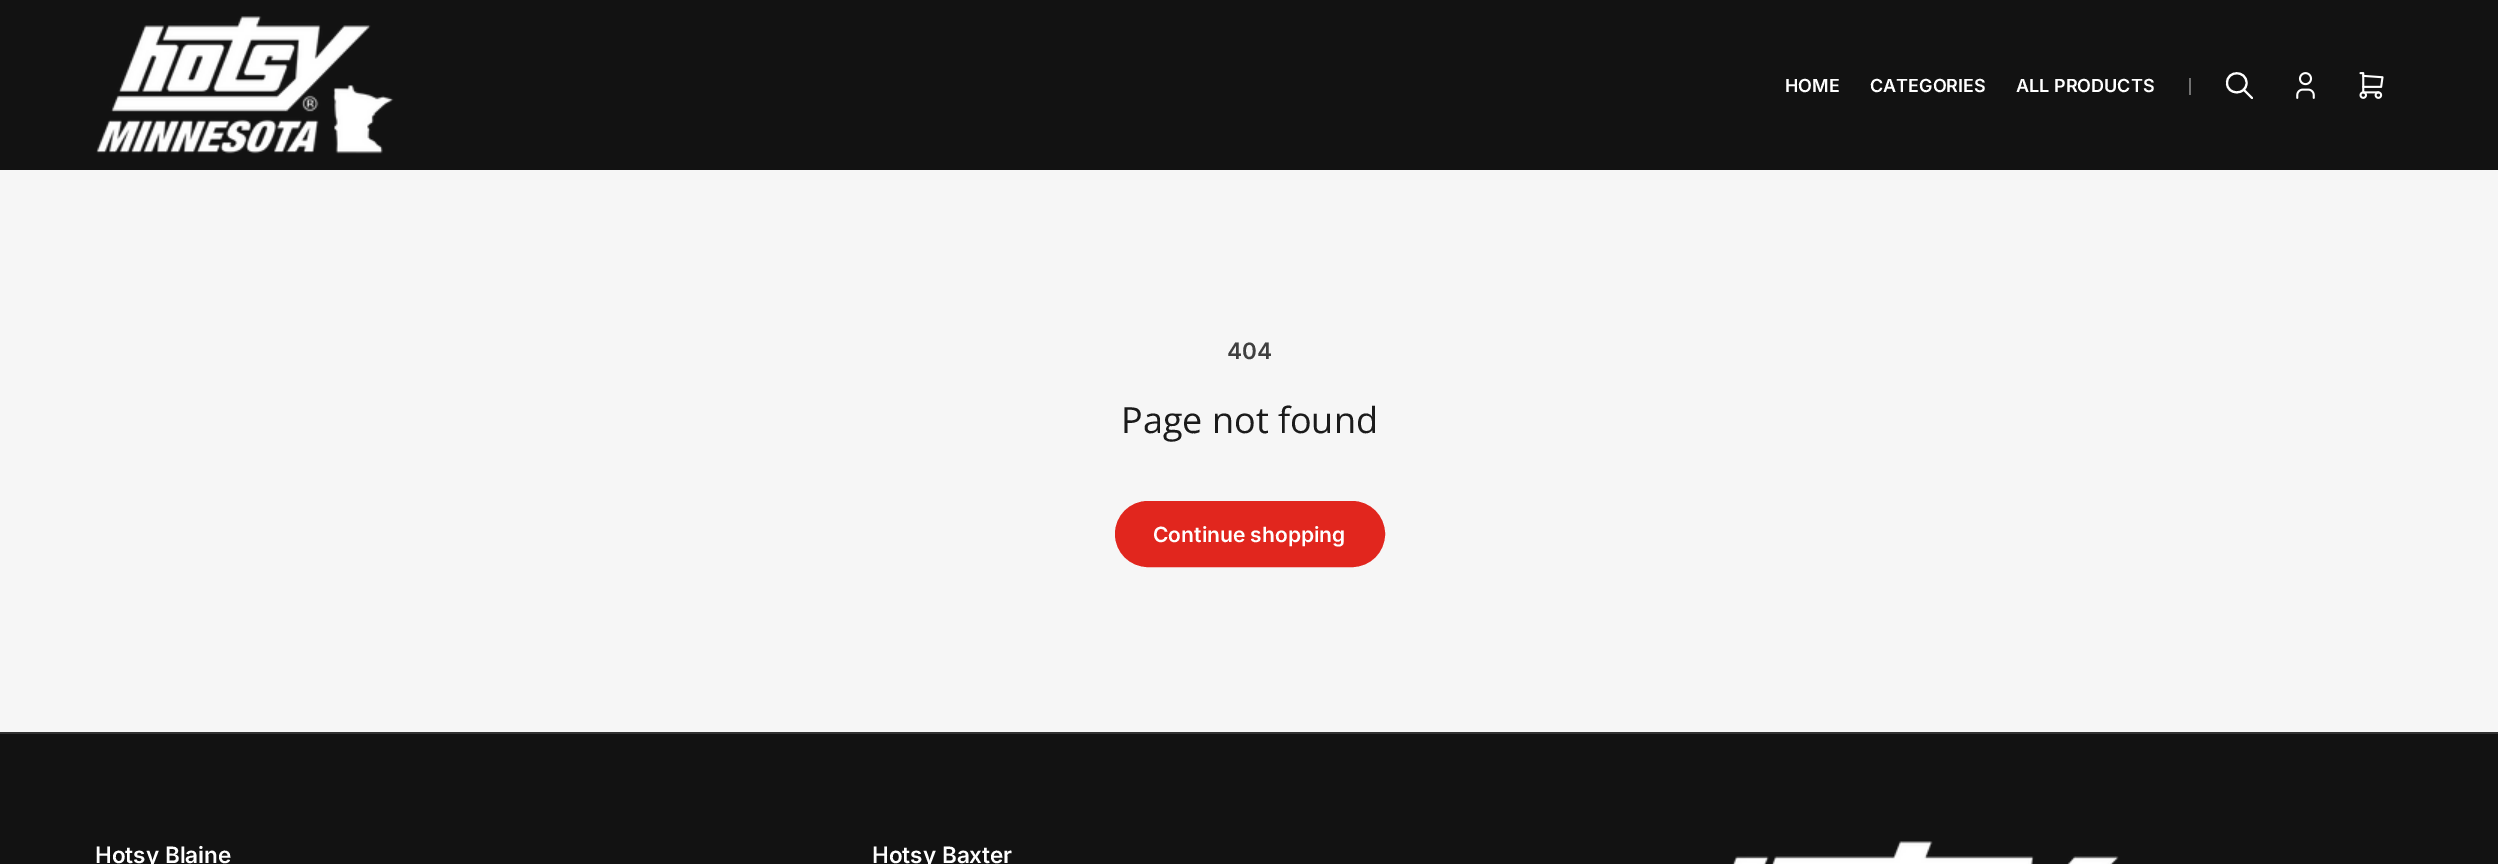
%!PS
<< /PageSize [2498 864] >> setpagedevice
/m/moveto load def
/l/rlineto load def
/c/rcurveto load def
/f/fill load def
/s/stroke load def
/q/gsave load def
/Q_/grestore load def
/w/setlinewidth load def
/C { dup -16 bitshift 255 div exch dup -8 bitshift 255 and 255 div exch 255 and 255 div setrgbcolor } def
/F { [ exch dup neg 0 0 3 -1 roll 0 0 ] selectfont } def
/T { moveto show } def
/R { rectfill } def
/Q { 5 dict begin { /r /h /w /y /x } { exch def } forall
  x r add y moveto x w add y 2 copy h add r arct x w add y h add x 1 index r arct
  x y h add x y r arct x y 2 copy exch w add exch r arct closepath end } def
/I { 5 dict begin { /h /w /y /x /name } { exch def } forall
  gsave x y translate w h scale
  w h 8 [w 0 0 h 0 0] name (r) file false 3 colorimage grestore end } def
0 864 translate 1 -1 scale
4 setmiterlimit
16#F6F6F6 C
0 0 2498 864 R
16#121212 C
0 0 2498 170 R
(1.rgb) 96 16 298 138 I
/Inter-SemiBold 18 F
16#FFFFFF C
(HOME) 1785 92 T
(CATEGORIES) 1870 92 T
(ALL PRODUCTS) 2016 92 T
16#717171 C
2189 78 2 17 R
16#FFFFFF C
2.1 w
1 setlinecap
1 setlinejoin
2227 83 m 0 12.5 19.5 12.5 19.5 0 c 0 -13 -19.5 -13 -19.5 0 c 2252 98 m -8.5 -8.5 l s
(2.rgb) 2296 72 19 27 I
(3.rgb) 2359 72 25 27 I
/Inter-SemiBold 22.5 F
16#404040 C
(404) 1227 359 T
/OpenSans-Regular 36 F
16#1B1B1B C
(Page not found) 1121 433 T
16#E1261E C
1116 502 268 64 32 Q q f Q_
2 w
0 setlinecap
0 setlinejoin
s
/Inter-SemiBold 21 F
16#FFFFFF C
(Continue shopping) 1153 542 T
16#121212 C
0 734 2498 130 R
16#313131 C
0 732 2498 2 R
/Inter-SemiBold 22.5 F
16#FFFFFF C
(Hotsy Blaine) 95 863 T
(Hotsy Baxter) 872 863 T
(4.rgb) 1732 841 387 23 I
showpage
